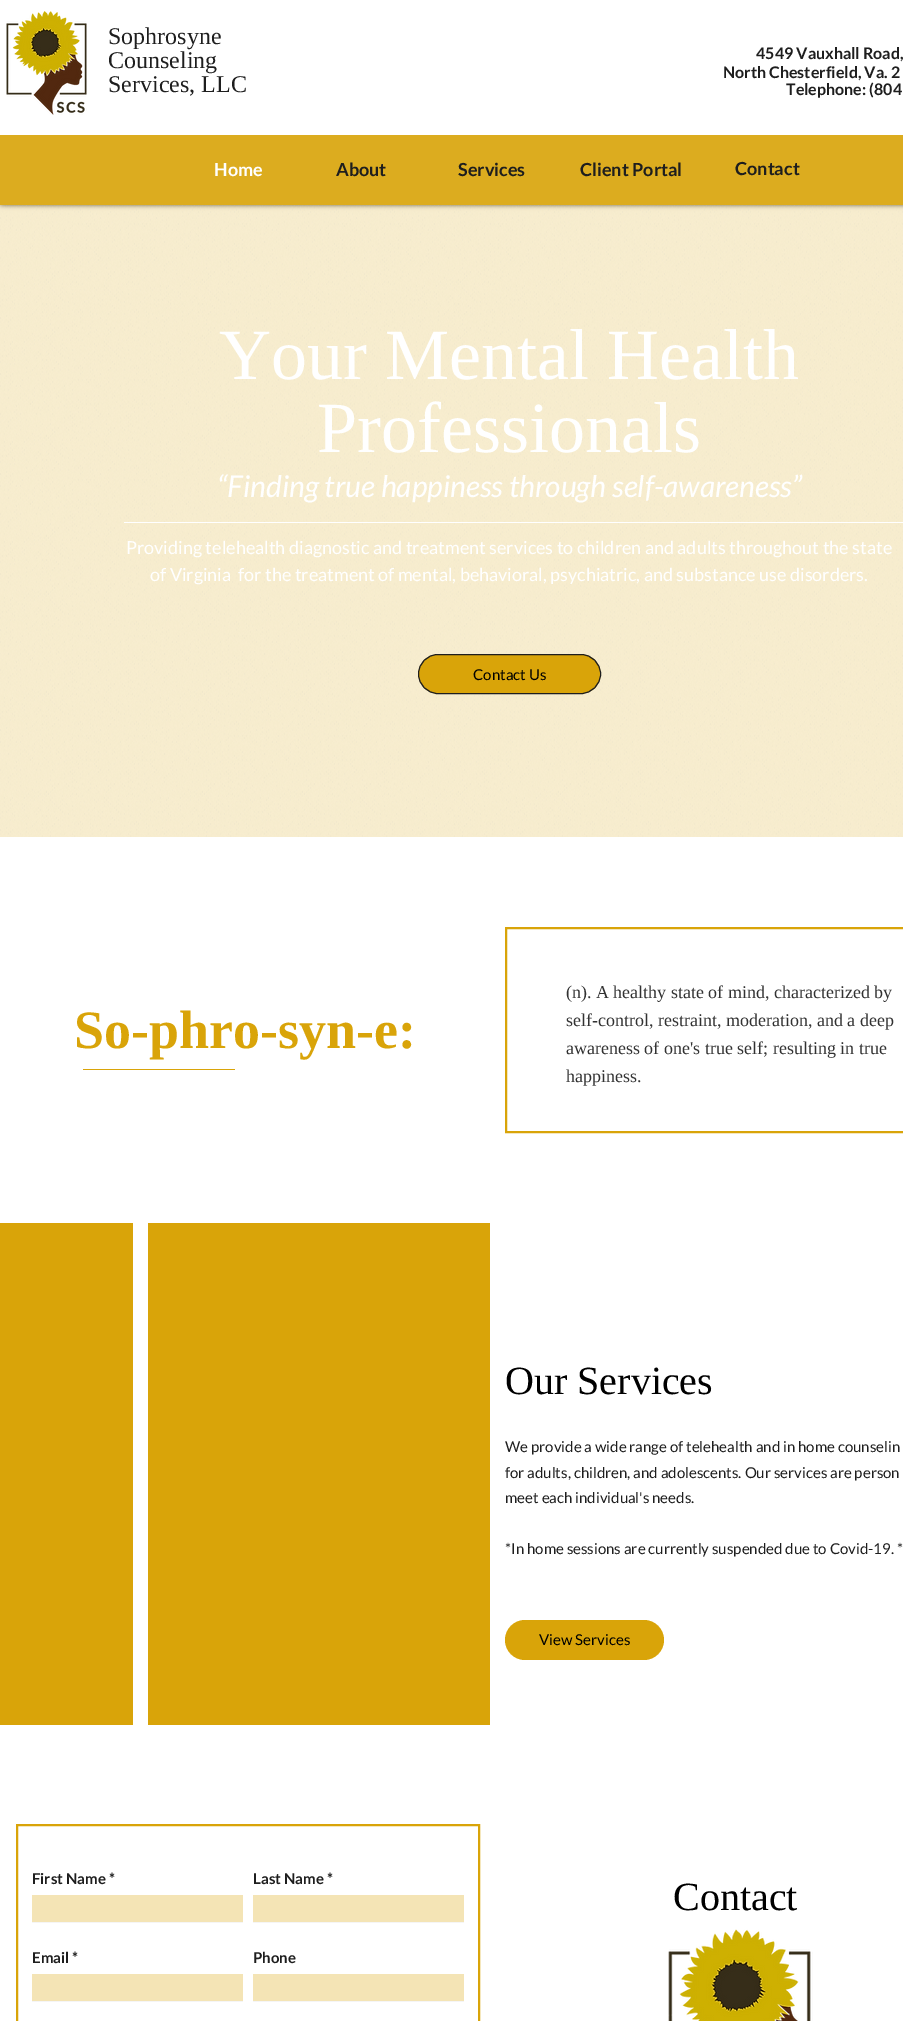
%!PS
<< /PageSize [903 2021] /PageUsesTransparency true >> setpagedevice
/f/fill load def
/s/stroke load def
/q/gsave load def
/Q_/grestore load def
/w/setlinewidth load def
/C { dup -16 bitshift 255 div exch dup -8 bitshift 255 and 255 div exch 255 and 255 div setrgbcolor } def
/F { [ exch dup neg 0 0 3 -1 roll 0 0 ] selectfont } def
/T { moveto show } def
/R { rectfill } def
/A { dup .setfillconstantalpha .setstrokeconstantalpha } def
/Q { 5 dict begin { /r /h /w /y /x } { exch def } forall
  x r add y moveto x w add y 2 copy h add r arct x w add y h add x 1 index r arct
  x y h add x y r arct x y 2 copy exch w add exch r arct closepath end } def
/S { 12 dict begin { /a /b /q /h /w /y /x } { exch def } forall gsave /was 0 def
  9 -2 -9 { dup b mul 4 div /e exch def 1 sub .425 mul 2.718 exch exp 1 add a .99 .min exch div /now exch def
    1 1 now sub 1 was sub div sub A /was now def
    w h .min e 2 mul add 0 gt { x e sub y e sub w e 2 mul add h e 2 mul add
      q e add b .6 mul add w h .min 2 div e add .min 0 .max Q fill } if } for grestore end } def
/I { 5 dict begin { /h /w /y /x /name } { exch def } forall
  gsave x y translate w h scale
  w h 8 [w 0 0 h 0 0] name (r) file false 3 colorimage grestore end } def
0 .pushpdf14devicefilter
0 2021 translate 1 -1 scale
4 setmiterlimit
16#FFFFFF C
0 0 903 2021 R
16#F7EDCE C
0 205 903 632 R
q
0 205 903 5 rectclip
16#2B2102 C
0 0 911 205 0 2.5 .7 S
Q_
(1.rgb) 6 11 81 104 I
/LiberationSerif-Regular 24 F
16#1E1E1E C
(Sophrosyne) 108 44 T
(Counseling) 108 68 T
(Services, LLC) 108 92 T
/Lato-Bold 16 F
(4549 Vauxhall Road,) 756 59 T
(North Chesterfield, Va. 2) 723 78 T
(Telephone: \(804) 786 95 T
16#DCAC1F C
0 135 903 70 R
/Lato-Bold 18 F
16#FFFFFF C
(Home) 214 176 T
16#1E1E1E C
(About) 336 176 T
(Services) 458 176 T
(Client Portal) 580 176 T
(Contact) 735 175 T
(2.rgb) 0 205 903 632 I
/LiberationSerif-Regular 72 F
16#FFFFFF C
(Your Mental Health) 219 379 T
(Professionals) 317 452 T
/Lato-Italic 30 F
(“Finding true happiness through self-awareness”) 217 497 T
124 522 779 1 R
/Lato-Regular 18 F
(Providing telehealth diagnostic and treatment services to children and adults throughout the state) 126 554 T
(of Virginia  for the treatment of mental, behavioral, psychiatric, and substance use disorders.) 150 581 T
16#D9A409 C
418.5 654.5 182 39 19.5 Q q f Q_
16#1E1E1E C
s
/Lato-Regular 15 F
16#000000 C
(Contact Us) 473 680 T
/LiberationSerif-Bold 54 F
16#D9A409 C
(So-phro-syn-e:) 74 1048 T
83 1069 152 1 R
2 w
506 928 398 204 rectstroke
/LiberationSerif-Regular 18 F
16#323232 C
(\(n\). A healthy state of mind, characterized by) 566 998 T
(self-control, restraint, moderation, and a deep) 566 1026 T
(awareness of one's true self; resulting in true) 566 1054 T
(happiness.) 566 1082 T
16#D9A409 C
0 1223 133 502 R
148 1223 342 502 R
/LiberationSerif-Regular 40 F
16#000000 C
(Our Services) 505 1394 T
/Lato-Regular 15 F
16#1E1E1E C
(We provide a wide range of telehealth and in home counselin) 505 1452 T
(for adults, children, and adolescents. Our services are person) 505 1478 T
(meet each individual's needs.) 505 1503 T
(*In home sessions are currently suspended due to Covid-19. *) 505 1554 T
16#D9A409 C
505 1620 159 40 20 Q f
16#000000 C
(View Services) 539 1645 T
16#D9A409 C
17 1825 462 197 rectstroke
/Lato-Bold 15 F
16#1E1E1E C
(First Name *) 32 1884 T
16#F4E4B5 C
32 1895 211 27 R
16#F5F5F5 C
32 1922 211 1 R
16#1E1E1E C
(Last Name *) 253 1884 T
16#F4E4B5 C
253 1895 211 27 R
16#F5F5F5 C
253 1922 211 1 R
16#1E1E1E C
(Email *) 32 1963 T
16#F4E4B5 C
32 1974 211 27 R
16#F5F5F5 C
32 2001 211 1 R
16#1E1E1E C
(Phone) 253 1963 T
16#F4E4B5 C
253 1974 211 27 R
16#F5F5F5 C
253 2001 211 1 R
/LiberationSerif-Regular 40 F
16#000000 C
(Contact) 673 1910 T
(3.rgb) 668 1929 145 92 I
.poppdf14devicefilter showpage
